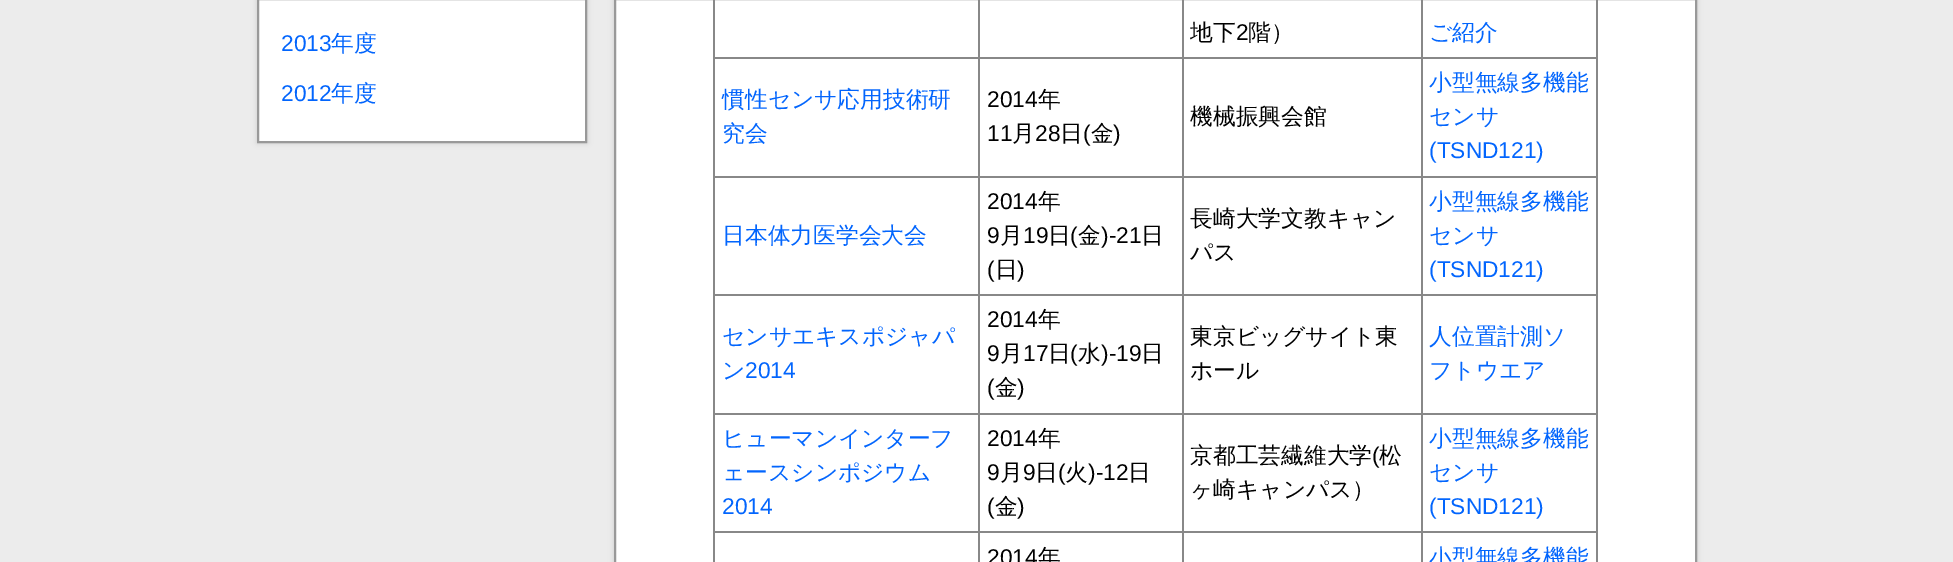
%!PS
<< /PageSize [1953 562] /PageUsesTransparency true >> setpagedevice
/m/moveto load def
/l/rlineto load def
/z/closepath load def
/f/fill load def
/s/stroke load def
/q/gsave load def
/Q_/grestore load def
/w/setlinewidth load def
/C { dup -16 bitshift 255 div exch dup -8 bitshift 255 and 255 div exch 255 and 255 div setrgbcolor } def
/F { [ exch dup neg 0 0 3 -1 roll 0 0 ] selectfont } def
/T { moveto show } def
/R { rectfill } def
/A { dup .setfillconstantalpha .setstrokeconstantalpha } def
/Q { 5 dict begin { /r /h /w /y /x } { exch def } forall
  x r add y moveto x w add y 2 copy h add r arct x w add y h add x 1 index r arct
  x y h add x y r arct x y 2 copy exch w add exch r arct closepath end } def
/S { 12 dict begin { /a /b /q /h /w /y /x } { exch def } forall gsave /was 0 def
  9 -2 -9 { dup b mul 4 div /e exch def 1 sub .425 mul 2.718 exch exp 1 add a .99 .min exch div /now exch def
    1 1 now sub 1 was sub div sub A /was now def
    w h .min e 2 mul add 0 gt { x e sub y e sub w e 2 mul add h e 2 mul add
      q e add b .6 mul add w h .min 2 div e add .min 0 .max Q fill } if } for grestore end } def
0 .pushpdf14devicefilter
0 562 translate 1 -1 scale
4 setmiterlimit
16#ECECEC C
0 0 1953 562 R
16#CCCCCC C
257 -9 330 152 0 3 1 S
16#FFFFFF C
258 -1 m 328 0 l 0 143 l -328 0 l z q f Q_
16#999999 C
2 w
s
/LiberationSans-Regular 22.75 F
16#0265FD C
(2013) 281 51 T
/WenQuanYiZenHei-Medium 22.75 F
(年度) 331 51 T
/LiberationSans-Regular 22.75 F
(2012) 281 101 T
/WenQuanYiZenHei-Medium 22.75 F
(年度) 331 101 T
16#CCCCCC C
614 -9 1083 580 0 3 1 S
16#FFFFFF C
615 -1 m 1081 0 l 0 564 l -1081 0 l z q f Q_
16#999999 C
s
16#888888 C
1596 0 2 562 R
713 0 2 562 R
1421 57 177 2 R
1421 176 177 2 R
1421 294 177 2 R
1421 413 177 2 R
1421 531 177 2 R
1421 531 2 31 R
1182 531 240 2 R
1421 413 2 120 R
1182 413 240 2 R
1421 294 2 120 R
1182 294 240 2 R
1421 176 2 120 R
1182 176 240 2 R
1421 57 2 120 R
1182 57 240 2 R
1182 531 2 31 R
978 531 206 2 R
1182 413 2 120 R
978 413 206 2 R
1182 294 2 120 R
978 294 206 2 R
1182 176 2 120 R
978 176 206 2 R
1182 57 2 120 R
978 57 206 2 R
978 531 2 31 R
713 531 267 2 R
978 413 2 120 R
713 413 267 2 R
978 294 2 120 R
713 294 267 2 R
978 176 2 120 R
713 176 267 2 R
978 57 2 120 R
713 57 267 2 R
978 0 2 59 R
1182 0 2 59 R
16#000000 C
(地下) 1190 40 T
/LiberationSans-Regular 22.75 F
(2) 1236 40 T
/WenQuanYiZenHei-Medium 22.75 F
(階）) 1248 40 T
16#888888 C
1421 0 2 59 R
16#0265FD C
(ご紹介) 1429 40 T
(慣性センサ応用技術研) 722 107 T
(究会) 722 141 T
/LiberationSans-Regular 22.75 F
16#000000 C
(2014) 987 107 T
/WenQuanYiZenHei-Medium 22.75 F
(年) 1038 107 T
/LiberationSans-Regular 22.75 F
(11) 987 141 T
/WenQuanYiZenHei-Medium 22.75 F
(月) 1012 141 T
/LiberationSans-Regular 22.75 F
(28) 1035 141 T
/WenQuanYiZenHei-Medium 22.75 F
(日) 1060 141 T
/LiberationSans-Regular 22.75 F
(\() 1083 141 T
/WenQuanYiZenHei-Medium 22.75 F
(金) 1091 141 T
/LiberationSans-Regular 22.75 F
(\)) 1113 141 T
/WenQuanYiZenHei-Medium 22.75 F
(機械振興会館) 1190 124 T
16#0265FD C
(小型無線多機能) 1429 90 T
(センサ) 1429 124 T
/LiberationSans-Regular 22.75 F
(\(TSND121\)) 1429 158 T
/WenQuanYiZenHei-Medium 22.75 F
(日本体力医学会大会) 722 243 T
/LiberationSans-Regular 22.75 F
16#000000 C
(2014) 987 209 T
/WenQuanYiZenHei-Medium 22.75 F
(年) 1038 209 T
/LiberationSans-Regular 22.75 F
(9) 987 243 T
/WenQuanYiZenHei-Medium 22.75 F
(月) 1000 243 T
/LiberationSans-Regular 22.75 F
(19) 1023 243 T
/WenQuanYiZenHei-Medium 22.75 F
(日) 1048 243 T
/LiberationSans-Regular 22.75 F
(\() 1070 243 T
/WenQuanYiZenHei-Medium 22.75 F
(金) 1078 243 T
/LiberationSans-Regular 22.75 F
(\)-21) 1101 243 T
/WenQuanYiZenHei-Medium 22.75 F
(日) 1141 243 T
/LiberationSans-Regular 22.75 F
(\() 987 277 T
/WenQuanYiZenHei-Medium 22.75 F
(日) 995 277 T
/LiberationSans-Regular 22.75 F
(\)) 1017 277 T
/WenQuanYiZenHei-Medium 22.75 F
(長崎大学文教キャン) 1190 226 T
(パス) 1190 260 T
16#0265FD C
(小型無線多機能) 1429 209 T
(センサ) 1429 243 T
/LiberationSans-Regular 22.75 F
(\(TSND121\)) 1429 277 T
/WenQuanYiZenHei-Medium 22.75 F
(センサエキスポジャパ) 722 344 T
(ン) 722 378 T
/LiberationSans-Regular 22.75 F
(2014) 745 378 T
16#000000 C
(2014) 987 327 T
/WenQuanYiZenHei-Medium 22.75 F
(年) 1038 327 T
/LiberationSans-Regular 22.75 F
(9) 987 361 T
/WenQuanYiZenHei-Medium 22.75 F
(月) 1000 361 T
/LiberationSans-Regular 22.75 F
(17) 1023 361 T
/WenQuanYiZenHei-Medium 22.75 F
(日) 1048 361 T
/LiberationSans-Regular 22.75 F
(\() 1070 361 T
/WenQuanYiZenHei-Medium 22.75 F
(水) 1078 361 T
/LiberationSans-Regular 22.75 F
(\)-19) 1101 361 T
/WenQuanYiZenHei-Medium 22.75 F
(日) 1141 361 T
/LiberationSans-Regular 22.75 F
(\() 987 395 T
/WenQuanYiZenHei-Medium 22.75 F
(金) 995 395 T
/LiberationSans-Regular 22.75 F
(\)) 1017 395 T
/WenQuanYiZenHei-Medium 22.75 F
(東京ビッグサイト東) 1190 344 T
(ホール) 1190 378 T
16#0265FD C
(人位置計測ソ) 1429 344 T
(フトウエア) 1429 378 T
(ヒューマンインターフ) 722 446 T
(ェースシンポジウム) 722 480 T
/LiberationSans-Regular 22.75 F
(2014) 722 514 T
16#000000 C
(2014) 987 446 T
/WenQuanYiZenHei-Medium 22.75 F
(年) 1038 446 T
/LiberationSans-Regular 22.75 F
(9) 987 480 T
/WenQuanYiZenHei-Medium 22.75 F
(月) 1000 480 T
/LiberationSans-Regular 22.75 F
(9) 1023 480 T
/WenQuanYiZenHei-Medium 22.75 F
(日) 1035 480 T
/LiberationSans-Regular 22.75 F
(\() 1058 480 T
/WenQuanYiZenHei-Medium 22.75 F
(火) 1065 480 T
/LiberationSans-Regular 22.75 F
(\)-12) 1088 480 T
/WenQuanYiZenHei-Medium 22.75 F
(日) 1128 480 T
/LiberationSans-Regular 22.75 F
(\() 987 514 T
/WenQuanYiZenHei-Medium 22.75 F
(金) 995 514 T
/LiberationSans-Regular 22.75 F
(\)) 1017 514 T
/WenQuanYiZenHei-Medium 22.75 F
(京都工芸繊維大学) 1190 463 T
/LiberationSans-Regular 22.75 F
(\() 1372 463 T
/WenQuanYiZenHei-Medium 22.75 F
(松) 1379 463 T
(ヶ崎キャンパス）) 1190 497 T
16#0265FD C
(小型無線多機能) 1429 446 T
(センサ) 1429 480 T
/LiberationSans-Regular 22.75 F
(\(TSND121\)) 1429 514 T
16#000000 C
(2014) 987 565 T
/WenQuanYiZenHei-Medium 22.75 F
(年) 1038 565 T
16#0265FD C
(小型無線多機能) 1429 565 T
.poppdf14devicefilter showpage
